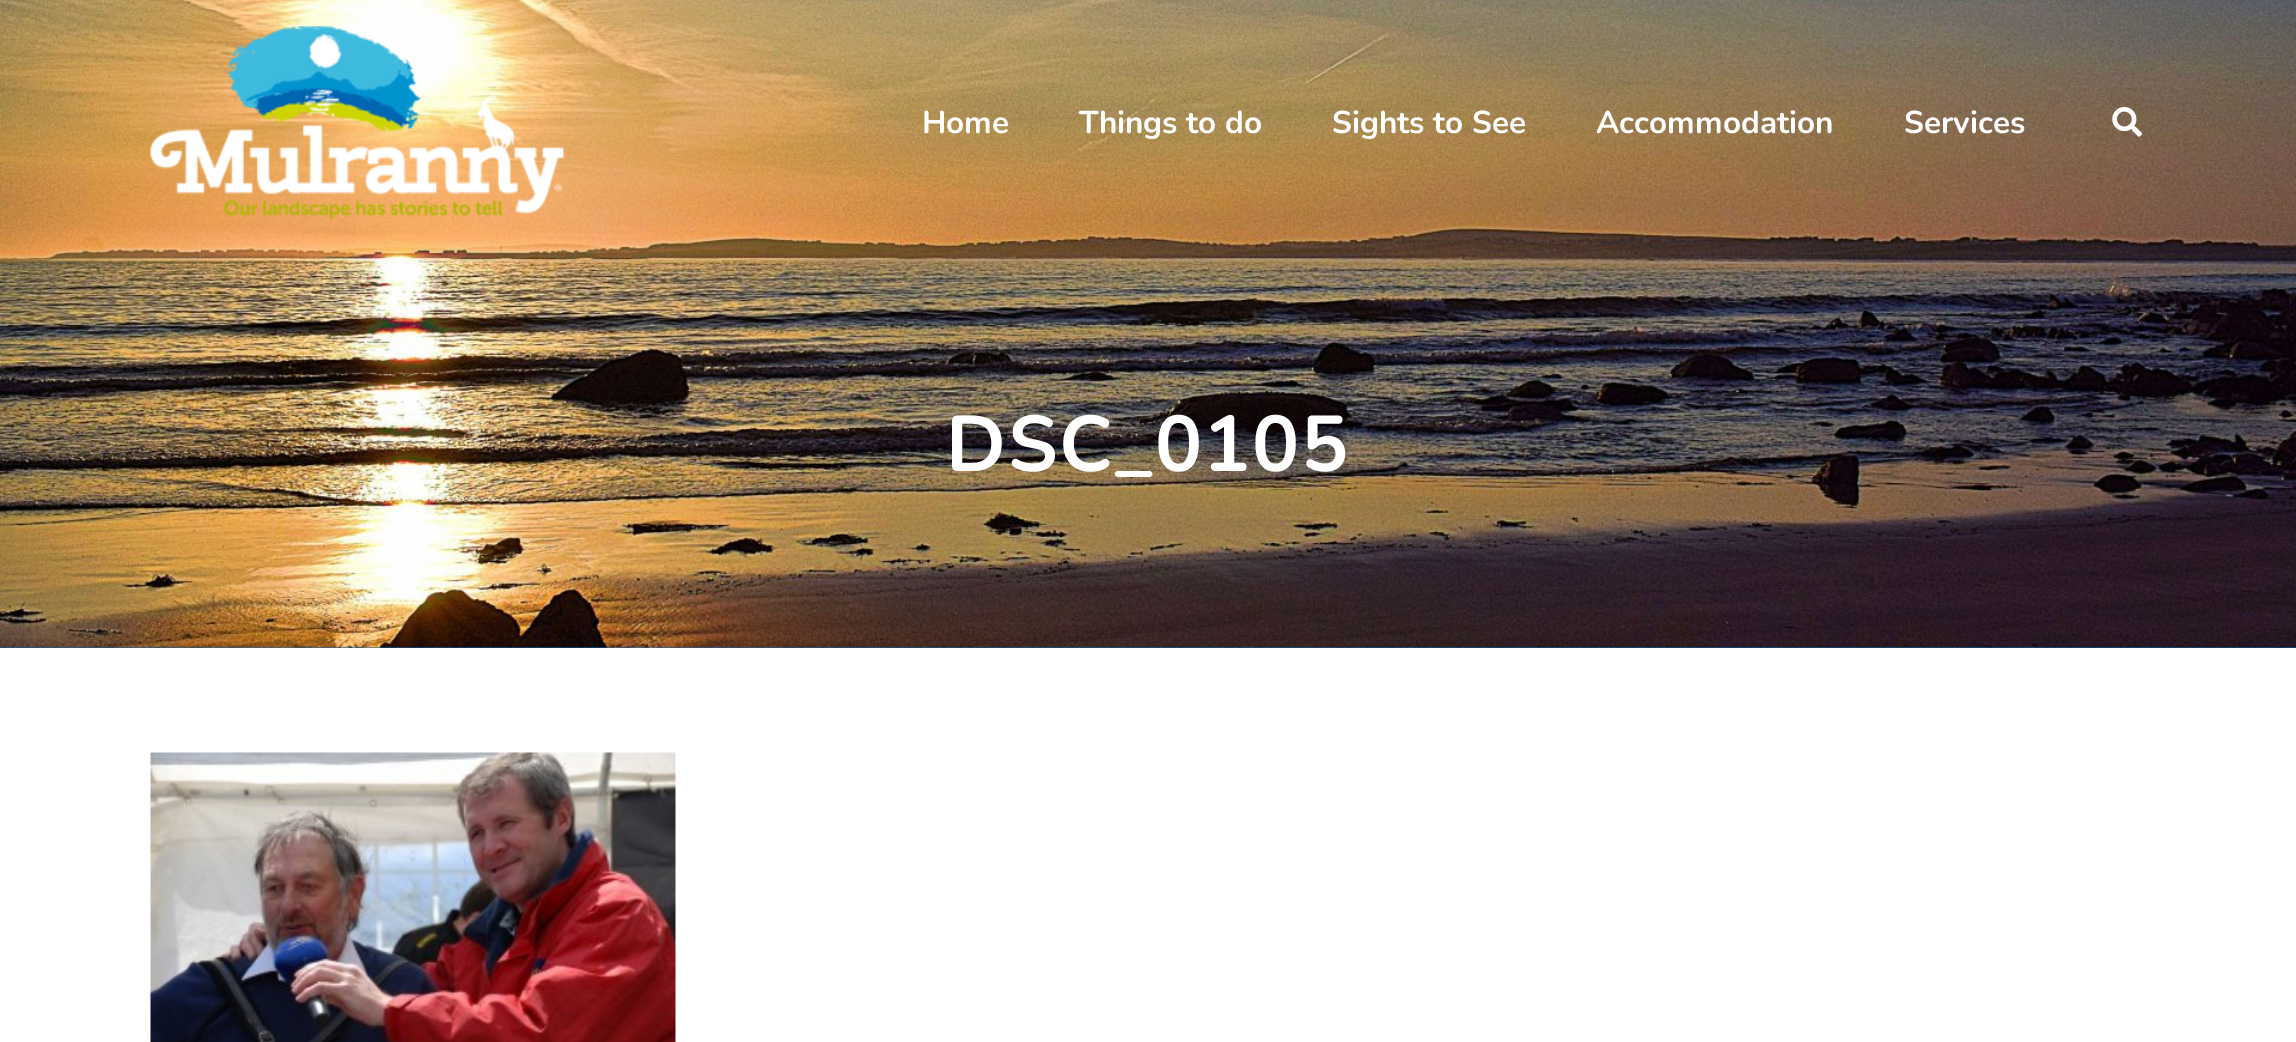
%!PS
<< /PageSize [2296 1042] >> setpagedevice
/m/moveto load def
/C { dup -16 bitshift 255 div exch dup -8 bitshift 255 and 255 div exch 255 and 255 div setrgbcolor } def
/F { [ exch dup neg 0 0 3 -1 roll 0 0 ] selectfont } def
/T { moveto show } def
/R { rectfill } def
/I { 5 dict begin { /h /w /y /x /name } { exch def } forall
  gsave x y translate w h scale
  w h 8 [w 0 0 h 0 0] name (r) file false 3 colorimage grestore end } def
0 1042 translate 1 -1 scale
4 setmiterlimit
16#FFFFFF C
0 0 2296 1042 R
16#0066B2 C
0 647 2296 1 R
(3.rgb) 0 0 2296 648 I
(1.rgb) 150 26 414 193 I
/Nunito-Bold 31.5 F
16#FFFFFF C
(Home) 922 133 T
(Things to do) 1079 133 T
(Sights to See) 1332 133 T
(Accommodation) 1596 133 T
(Services) 1904 133 T
(2.rgb) 2112 107 30 30 I
/Nunito-Bold 78.75 F
946 471 m 1.5 0 (DSC_0105) ashow
(4.rgb) 150 752 526 290 I
showpage
